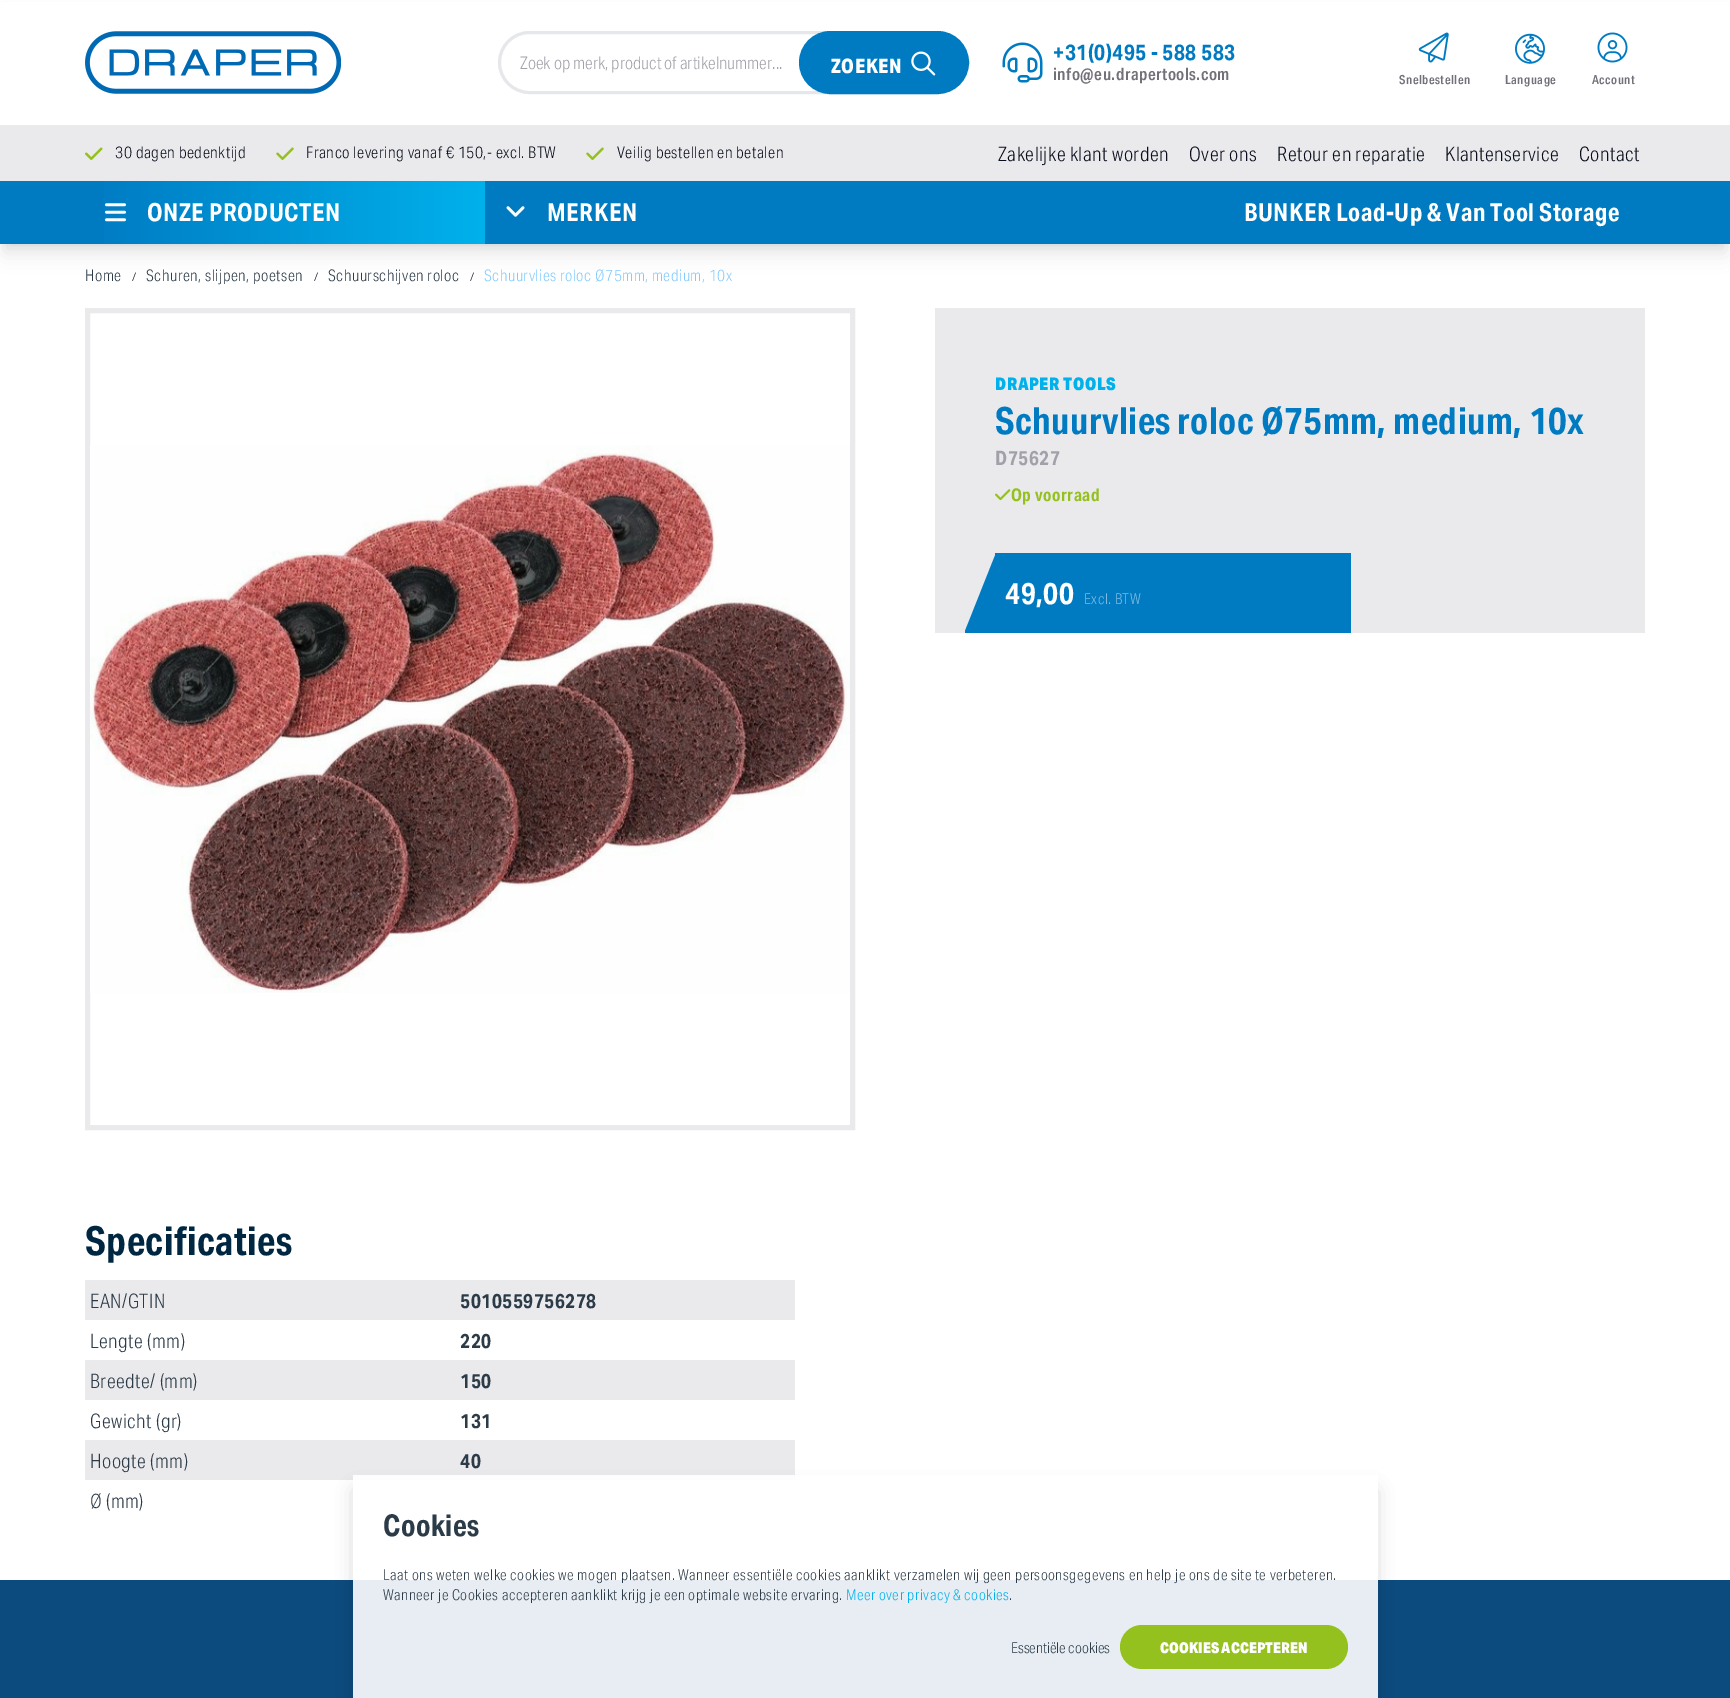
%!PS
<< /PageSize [1730 1698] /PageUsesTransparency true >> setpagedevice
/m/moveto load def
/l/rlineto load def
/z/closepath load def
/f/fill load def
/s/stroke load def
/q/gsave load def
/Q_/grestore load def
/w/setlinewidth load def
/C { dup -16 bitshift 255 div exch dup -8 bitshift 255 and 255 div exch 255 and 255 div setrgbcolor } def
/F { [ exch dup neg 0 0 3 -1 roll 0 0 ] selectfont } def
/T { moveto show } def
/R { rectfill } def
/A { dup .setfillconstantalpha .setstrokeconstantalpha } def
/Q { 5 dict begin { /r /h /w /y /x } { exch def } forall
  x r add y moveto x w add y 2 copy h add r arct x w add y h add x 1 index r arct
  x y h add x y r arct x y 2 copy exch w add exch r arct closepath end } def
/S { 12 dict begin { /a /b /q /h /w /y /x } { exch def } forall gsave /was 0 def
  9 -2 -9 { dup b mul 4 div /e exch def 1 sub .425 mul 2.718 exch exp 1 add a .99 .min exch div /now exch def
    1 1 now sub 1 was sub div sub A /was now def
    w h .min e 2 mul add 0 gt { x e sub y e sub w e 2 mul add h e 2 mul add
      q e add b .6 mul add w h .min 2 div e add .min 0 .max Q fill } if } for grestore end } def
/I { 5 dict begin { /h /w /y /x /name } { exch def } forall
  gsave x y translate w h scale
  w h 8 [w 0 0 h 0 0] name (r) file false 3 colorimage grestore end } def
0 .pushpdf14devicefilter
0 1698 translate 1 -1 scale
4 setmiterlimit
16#FFFFFF C
0 0 1730 1698 R
16#000000 C
5 10 1720 234 0 4 .1 S
4 16 1722 237 0 9.5 .1 S
16#FFFFFF C
0 2 1730 123 R
(1.rgb) 85 31 256 63 I
16#E5E7EB C
3 w
499.5 32.5 462 60 30 Q s
/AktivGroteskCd-Light 17.5 F
16#A1A1AA C
(Zoek op merk, product of artikelnummer...) 520 69 T
16#007BC2 C
800.5 32.5 167 60 30 Q q f Q_
s
/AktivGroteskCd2-Bold 20 F
16#FFFFFF C
831 73 m .5 0 (ZOEKEN) ashow
(2.rgb) 911 51 25 25 I
(3.rgb) 1002 42 41 41 I
/AktivGroteskCd-Bold 22 F
16#007BC2 C
1053 60 m .5 0 (+31\(0\)495 - 588 583) ashow
/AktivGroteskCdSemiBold-SemiBold 17 F
16#71717A C
1053 80 m .5 0 (info@eu.drapertools.com) ashow
(4.rgb) 1418 32 31 31 I
/AktivGroteskCdSemiBold-SemiBold 12.5 F
1399 84 m .5 0 (Snelbestellen) ashow
(5.rgb) 1515 33 30 31 I
1505 84 m .5 0 (Language) ashow
(6.rgb) 1597 32 31 31 I
1592 84 m .5 0 (Account) ashow
16#EAEAED C
0 125 1730 56 R
(7.rgb) 85 147 18 13 I
/AktivGroteskCd-Light 16.25 F
16#0A0E1C C
115 158 m .5 0 (30 dagen bedenktijd) ashow
(8.rgb) 276 147 18 13 I
306 158 m .5 0 (Franco levering vanaf € 150,- excl. BTW) ashow
(8.rgb) 586 147 18 13 I
617 158 m .5 0 (Veilig bestellen en betalen) ashow
/AktivGroteskCd-Light 20 F
998 161 m .5 0 (Zakelijke klant worden) ashow
1189 161 m .5 0 (Over ons) ashow
1277 161 m .5 0 (Retour en reparatie) ashow
1445 161 m .5 0 (Klantenservice) ashow
1579 161 m .5 0 (Contact) ashow
16#007BC2 C
0 181 1730 63 R
q 104 181 m 381 0 l 0 63 l -381 0 l z clip newpath
<< /ShadingType 2 /ColorSpace /DeviceRGB /Coords [85 213 485 213] /Extend [true true] /Function << /FunctionType 2 /Domain [0 1] /C0 [0 .482 .761] /C1 [0 .694 .922] /N 1 >> >> shfill Q_
(9.rgb) 105 203 21 19 I
/AktivGroteskCd-Bold 25 F
16#FFFFFF C
147 221 m .5 0 (ONZE PRODUCTEN) ashow
(10.rgb) 506 206 19 11 I
547 221 m .5 0 (MERKEN) ashow
1244 221 m .5 0 (BUNKER Load-Up & Van Tool Storage) ashow
/AktivGroteskCd-Light 16 F
16#2C3B48 C
85 281 m .5 0 (Home) ashow
/NotoSans-Light 12 F
16#0A0E1C C
132 281 m .5 0 (/) ashow
/AktivGroteskCd-Light 16 F
16#2C3B48 C
146 281 m .5 0 (Schuren, slijpen, poetsen) ashow
/NotoSans-Light 12 F
16#0A0E1C C
314 281 m .5 0 (/) ashow
/AktivGroteskCd-Light 16 F
16#2C3B48 C
328 281 m .5 0 (Schuurschijven roloc) ashow
/NotoSans-Light 12 F
16#0A0E1C C
470 281 m .5 0 (/) ashow
/AktivGroteskCd-Light 16 F
16#84CBFC C
484 281 m .5 0 (Schuurvlies roloc) ashow
/RobotoCondensed-Light 16 F
595 281 m .5 0 (Ø) ashow
/AktivGroteskCd-Light 16 F
605 281 m .5 0 (75mm, medium, 10x) ashow
16#EAEAED C
5 w
87.5 310.5 765 817 rectstroke
(11.rgb) 90 445 760 548 I
935 308 710 325 R
/AktivGroteskCd-Black 17.5 F
16#00B1EB C
995 390 m .5 0 (DRAPER TOOLS) ashow
/AktivGroteskCd-Bold 37.5 F
16#007BC2 C
995 434 m .5 0 (Schuurvlies roloc) ashow
/RobotoCondensed-Bold 37.5 F
1261 434 m .5 0 (Ø) ashow
/AktivGroteskCd-Bold 37.5 F
1284 434 m .5 0 (75mm, medium, 10x) ashow
/AktivGroteskCd-Bold 20 F
16#A1A1AA C
995 465 m .5 0 (D75627) ashow
(12.rgb) 995 489 16 12 I
/AktivGroteskCd-Bold 17.5 F
16#95C11F C
1011 501 m .5 0 (Op voorraad) ashow
16#007BC2 C
995 553 356 80 R
996 553 m 0 80 l -31 0 l 0 -2 l z f
/AktivGroteskCd-Bold 30 F
16#FFFFFF C
1005 604 m .5 0 (49,00) ashow
/AktivGroteskCd-Light 15 F
16#80BDE1 C
1084 604 m .5 0 (Excl. BTW) ashow
/AktivGroteskCd-Bold 40 F
16#002742 C
85 1255 m .5 0 (Specificaties) ashow
16#EAEAED C
85 1280 710 40 R
/AktivGroteskCd-Light 20 F
16#2C3B48 C
90 1308 m .5 0 (EAN/GTIN) ashow
/AktivGroteskCd-Bold 20 F
460 1308 m .5 0 (5010559756278) ashow
/AktivGroteskCd-Light 20 F
90 1348 m .5 0 (Lengte \(mm\)) ashow
/AktivGroteskCd-Bold 20 F
460 1348 m .5 0 (220) ashow
16#EAEAED C
85 1360 710 40 R
/AktivGroteskCd-Light 20 F
16#2C3B48 C
90 1388 m .5 0 (Breedte/ \(mm\)) ashow
/AktivGroteskCd-Bold 20 F
460 1388 m .5 0 (150) ashow
/AktivGroteskCd-Light 20 F
90 1428 m .5 0 (Gewicht \(gr\)) ashow
/AktivGroteskCd-Bold 20 F
460 1428 m .5 0 (131) ashow
16#EAEAED C
85 1440 710 40 R
/AktivGroteskCd-Light 20 F
16#2C3B48 C
90 1468 m .5 0 (Hoogte \(mm\)) ashow
/AktivGroteskCd-Bold 20 F
460 1468 m .5 0 (40) ashow
/RobotoCondensed-Light 20 F
90 1508 m .5 0 (Ø) ashow
/AktivGroteskCd-Light 20 F
106 1508 m .5 0 (\(mm\)) ashow
16#0C4B7E C
0 1580 1730 118 R
q
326 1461 m 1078 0 l 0 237 l -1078 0 l z 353 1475 m 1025 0 l 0 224 l -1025 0 l z eoclip newpath
16#000000 C
356 1491 1018 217 0 9.5 .2 S
Q_
0.9 A
16#FFFFFF C
353 1475 1025 223 R
/AktivGroteskCd-Bold 30 F
1 A
16#2C3B48 C
383 1536 m .5 0 (Cookies) ashow
/AktivGroteskCd-Light 15 F
383 1580 m .5 0 (Laat ons weten welke cookies we mogen plaatsen. Wanneer essentiële cookies aanklikt verzamelen wij geen persoonsgegevens en help je ons de site te verbeteren.) ashow
383 1600 m .5 0 (Wanneer je Cookies accepteren aanklikt krijg je een optimale website ervaring.) ashow
16#00B1EB C
846 1600 m .5 0 (Meer over privacy & cookies) ashow
16#2C3B48 C
1009 1600 m .5 0 (.) ashow
(Essentiële cookies) 1011 1653 T
16#95C11F C
1120 1625 228 44 22 Q f
/AktivGroteskCd-Black 15 F
16#FFFFFF C
(COOKIES ACCEPTEREN) 1160 1653 T
.poppdf14devicefilter showpage
